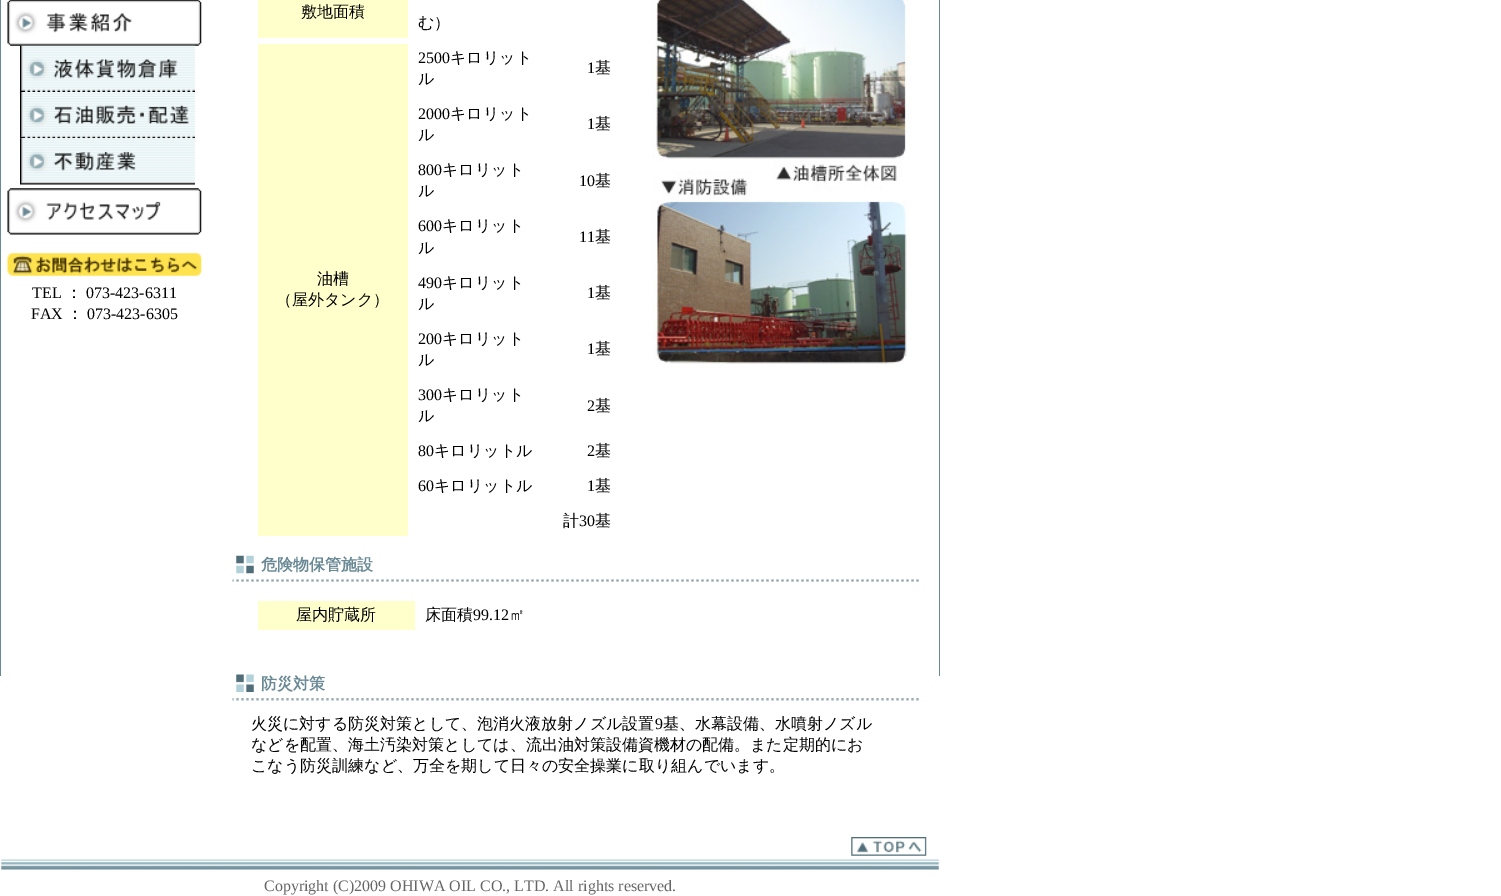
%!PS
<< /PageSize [1501 896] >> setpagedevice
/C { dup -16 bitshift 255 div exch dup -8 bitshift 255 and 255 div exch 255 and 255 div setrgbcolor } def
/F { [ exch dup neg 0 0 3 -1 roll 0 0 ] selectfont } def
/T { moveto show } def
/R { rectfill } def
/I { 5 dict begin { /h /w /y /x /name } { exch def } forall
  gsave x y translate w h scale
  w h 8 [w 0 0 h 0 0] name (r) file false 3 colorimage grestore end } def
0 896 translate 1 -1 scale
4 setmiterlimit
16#FFFFFF C
0 0 1501 896 R
16#698994 C
939 0 1 676 R
0 0 1 676 R
(1.rgb) 7 0 195 46 I
(2.rgb) 20 45 175 47 I
(3.rgb) 20 92 175 47 I
(4.rgb) 20 138 175 47 I
(5.rgb) 7 188 195 47 I
(6.rgb) 7 253 195 23 I
/LiberationSerif-Regular 16 F
16#000000 C
(TEL) 32 298 T
/WenQuanYiZenHei-Medium 16 F
(：) 66 298 T
/LiberationSerif-Regular 16 F
(073-423-6311) 86 298 T
(FAX) 31 319 T
/WenQuanYiZenHei-Medium 16 F
(：) 67 319 T
/LiberationSerif-Regular 16 F
(073-423-6305) 87 319 T
16#FFFFCC C
258 0 150 38 R
/WenQuanYiZenHei-Medium 16 F
16#000000 C
(敷地面積) 301 17 T
(7.rgb) 652 0 258 367 I
(む）) 418 28 T
/LiberationSerif-Regular 16 F
(2500) 418 63 T
/WenQuanYiZenHei-Medium 16 F
(キロリット) 450 63 T
(ル) 418 84 T
/LiberationSerif-Regular 16 F
(1) 587 73 T
/WenQuanYiZenHei-Medium 16 F
(基) 595 73 T
16#FFFFCC C
258 44 150 492 R
16#000000 C
(油槽) 317 284 T
(（屋外タンク）) 276 305 T
/LiberationSerif-Regular 16 F
(2000) 418 119 T
/WenQuanYiZenHei-Medium 16 F
(キロリット) 450 119 T
(ル) 418 140 T
/LiberationSerif-Regular 16 F
(1) 587 129 T
/WenQuanYiZenHei-Medium 16 F
(基) 595 129 T
/LiberationSerif-Regular 16 F
(800) 418 175 T
/WenQuanYiZenHei-Medium 16 F
(キロリット) 442 175 T
(ル) 418 196 T
/LiberationSerif-Regular 16 F
(10) 579 186 T
/WenQuanYiZenHei-Medium 16 F
(基) 595 186 T
/LiberationSerif-Regular 16 F
(600) 418 231 T
/WenQuanYiZenHei-Medium 16 F
(キロリット) 442 231 T
(ル) 418 253 T
/LiberationSerif-Regular 16 F
(11) 579 242 T
/WenQuanYiZenHei-Medium 16 F
(基) 595 242 T
/LiberationSerif-Regular 16 F
(490) 418 288 T
/WenQuanYiZenHei-Medium 16 F
(キロリット) 442 288 T
(ル) 418 309 T
/LiberationSerif-Regular 16 F
(1) 587 298 T
/WenQuanYiZenHei-Medium 16 F
(基) 595 298 T
/LiberationSerif-Regular 16 F
(200) 418 344 T
/WenQuanYiZenHei-Medium 16 F
(キロリット) 442 344 T
(ル) 418 365 T
/LiberationSerif-Regular 16 F
(1) 587 354 T
/WenQuanYiZenHei-Medium 16 F
(基) 595 354 T
/LiberationSerif-Regular 16 F
(300) 418 400 T
/WenQuanYiZenHei-Medium 16 F
(キロリット) 442 400 T
(ル) 418 421 T
/LiberationSerif-Regular 16 F
(2) 587 411 T
/WenQuanYiZenHei-Medium 16 F
(基) 595 411 T
/LiberationSerif-Regular 16 F
(80) 418 456 T
/WenQuanYiZenHei-Medium 16 F
(キロリットル) 434 456 T
/LiberationSerif-Regular 16 F
(2) 587 456 T
/WenQuanYiZenHei-Medium 16 F
(基) 595 456 T
/LiberationSerif-Regular 16 F
(60) 418 491 T
/WenQuanYiZenHei-Medium 16 F
(キロリットル) 434 491 T
/LiberationSerif-Regular 16 F
(1) 587 491 T
/WenQuanYiZenHei-Medium 16 F
(基) 595 491 T
(計) 563 526 T
/LiberationSerif-Regular 16 F
(30) 579 526 T
/WenQuanYiZenHei-Medium 16 F
(基) 595 526 T
(8.rgb) 232 579 687 3 I
(9.rgb) 236 555 18 19 I
/WenQuanYiZenHei-Bold 16 F
16#698994 C
(危険物保管施設) 261 570 T
16#FFFFCC C
258 601 157 29 R
/WenQuanYiZenHei-Medium 16 F
16#000000 C
(屋内貯蔵所) 296 620 T
(床面積) 425 620 T
/LiberationSerif-Regular 16 F
(99.12) 473 620 T
/WenQuanYiZenHei-Medium 16 F
(㎡) 509 620 T
(10.rgb) 232 698 687 3 I
(11.rgb) 236 674 18 18 I
/WenQuanYiZenHei-Bold 16 F
16#698994 C
(防災対策) 261 689 T
/WenQuanYiZenHei-Medium 16 F
16#000000 C
(火災に対する防災対策として、泡消火液放射ノズル設置) 251 729 T
/LiberationSerif-Regular 16 F
(9) 655 729 T
/WenQuanYiZenHei-Medium 16 F
(基、水幕設備、水噴射ノズル) 663 729 T
(などを配置、海土汚染対策としては、流出油対策設備資機材の配備。また定期的にお) 251 750 T
(こなう防災訓練など、万全を期して日々の安全操業に取り組んでいます。) 251 771 T
(12.rgb) 851 837 76 19 I
(13.rgb) 1 859 938 11 I
/LiberationSerif-Regular 16 F
16#666666 C
(Copyright \(C\)2009 OHIWA OIL CO., LTD. All rights reserved.) 264 891 T
showpage
